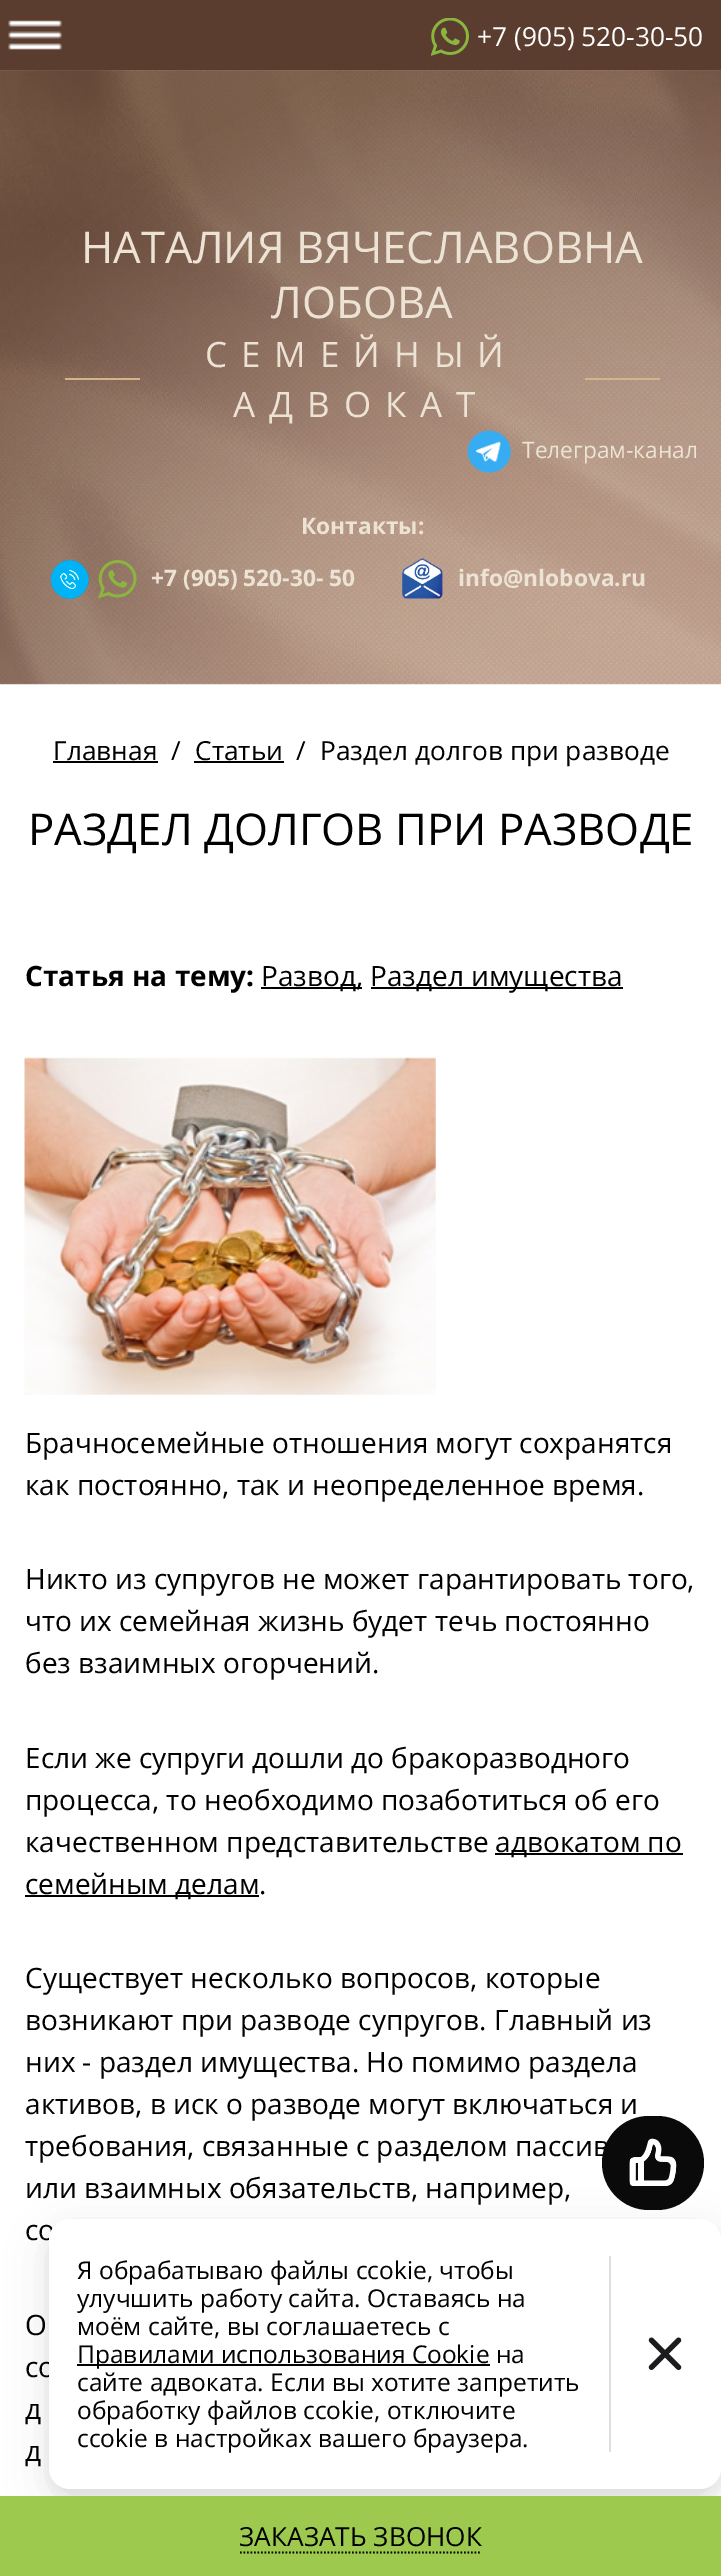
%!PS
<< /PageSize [721 2576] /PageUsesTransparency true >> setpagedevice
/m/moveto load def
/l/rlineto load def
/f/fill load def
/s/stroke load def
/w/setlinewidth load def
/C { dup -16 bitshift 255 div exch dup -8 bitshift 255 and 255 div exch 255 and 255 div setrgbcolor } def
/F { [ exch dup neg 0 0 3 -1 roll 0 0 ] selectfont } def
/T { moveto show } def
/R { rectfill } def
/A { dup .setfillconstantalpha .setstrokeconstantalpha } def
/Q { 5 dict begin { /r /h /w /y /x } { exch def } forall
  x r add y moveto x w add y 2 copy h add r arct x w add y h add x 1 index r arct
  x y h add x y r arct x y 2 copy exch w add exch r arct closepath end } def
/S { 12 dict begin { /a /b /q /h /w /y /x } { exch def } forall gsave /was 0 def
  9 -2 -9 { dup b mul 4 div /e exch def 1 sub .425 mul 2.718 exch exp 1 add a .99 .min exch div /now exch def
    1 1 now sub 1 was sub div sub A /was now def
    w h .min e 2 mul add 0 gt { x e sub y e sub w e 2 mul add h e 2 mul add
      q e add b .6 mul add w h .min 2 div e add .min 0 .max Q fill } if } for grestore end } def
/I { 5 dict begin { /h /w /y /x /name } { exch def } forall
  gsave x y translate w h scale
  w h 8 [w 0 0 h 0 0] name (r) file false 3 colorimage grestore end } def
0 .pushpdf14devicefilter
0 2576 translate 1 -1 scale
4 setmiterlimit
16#FFFFFF C
0 0 721 2576 R
(1.rgb) 0 70 721 615 I
16#5A3D2F C
0 0 721 70 R
(2.rgb) 8 20 54 30 I
(3.rgb) 431 18 38 38 I
/OpenSans-Regular 26.25 F
16#FFFFFF C
(+7 \(905\) 520-30-50) 477 46 T
/OpenSans-Regular 43.75 F
16#EDE3D5 C
(НАТАЛИЯ ВЯЧЕСЛАВОВНА) 81 263 T
(ЛОБОВА) 271 318 T
/OpenSans-Regular 35 F
205 367 m 14 0 (СЕМЕЙНЫЙ) ashow
16#D6B48B C
65 378 75 2 R
585 378 75 2 R
16#EDE3D5 C
233 417 m 14 0 (АДВОКАТ) ashow
(4.rgb) 467 430 44 43 I
/OpenSans-Regular 22.75 F
(Телеграм-канал) 522 458 T
/OpenSans-Bold 22.75 F
(Контакты:) 301 534 T
(5.rgb) 50 560 39 39 I
(6.rgb) 98 560 39 39 I
(+7 \(905\) 520-30- 50) 151 586 T
(7.rgb) 402 558 43 41 I
(info@nlobova.ru) 458 586 T
/OpenSans-Regular 26.25 F
16#000000 C
(Главная) 53 760 T
53 761 105 2 R
(/) 171 760 T
(Статьи) 195 760 T
194 761 90 2 R
(/) 296 760 T
(Раздел долгов при разводе) 320 760 T
/OpenSans-Regular 43.75 F
(РАЗДЕЛ ДОЛГОВ ПРИ РАЗВОДЕ) 28 845 T
/OpenSans-Bold 28 F
(Статья на тему:) 25 986 T
261 987 101 2 R
/OpenSans-Regular 28 F
(Развод,) 261 986 T
371 987 252 2 R
(Раздел имущества) 370 986 T
(8.rgb) 24 1057 412 338 I
(Брачносемейные отношения могут сохранятся) 25 1453 T
(как постоянно, так и неопределенное время.) 25 1495 T
(Никто из супругов не может гарантировать того,) 25 1589 T
(что их семейная жизнь будет течь постоянно) 25 1631 T
(без взаимных огорчений.) 25 1673 T
(Если же супруги дошли до бракоразводного) 25 1768 T
(процесса, то необходимо позаботиться об его) 25 1810 T
(качественном представительстве) 25 1852 T
495 1853 188 2 R
(адвокатом по) 495 1852 T
25 1895 234 2 R
(семейным делам.) 25 1894 T
(Существует несколько вопросов, которые) 25 1988 T
(возникают при разводе супругов. Главный из) 25 2030 T
(них - раздел имущества. Но помимо раздела) 25 2072 T
(активов, в иск о разводе могут включаться и) 25 2114 T
(требования, связанные с разделом пассив) 25 2156 T
(или взаимных обязательств, например,) 25 2198 T
(со) 25 2240 T
(О) 25 2335 T
(со) 25 2377 T
(д) 25 2419 T
(д) 25 2461 T
49 2233 672 270 21 21 .1 S
49 2226 672 270 21 7 .05 S
16#FFFFFF C
49 2219 672 270 21 Q f
16#0A0A0B C
602 2116 102 94 47 Q f
(9.rgb) 629 2138 48 48 I
16#DFDFDF C
609 2256 2 196 R
/OpenSans-Regular 24.5 F
16#000000 C
(Я обрабатываю файлы ccokie, чтобы) 77 2279 T
(улучшить работу сайта. Оставаясь на) 77 2307 T
(моём сайте, вы соглашаетесь с) 77 2335 T
77 2364 413 2 R
(Правилами использования Cookie на) 77 2363 T
(сайте адвоката. Если вы хотите запретить) 77 2391 T
(обработку файлов ccokie, отключите) 77 2419 T
(ccokie в настройках вашего браузера.) 77 2447 T
(10.rgb) 648 2337 34 33 I
16#9DCA4E C
0 2496 721 80 R
16#000000 C
1.8 w
[1.75 1.75] 0 setdash
240 2552.5 m 241 0 l s
/OpenSans-Regular 26.25 F
(ЗАКАЗАТЬ ЗВОНОК) 239 2546 T
.poppdf14devicefilter showpage
